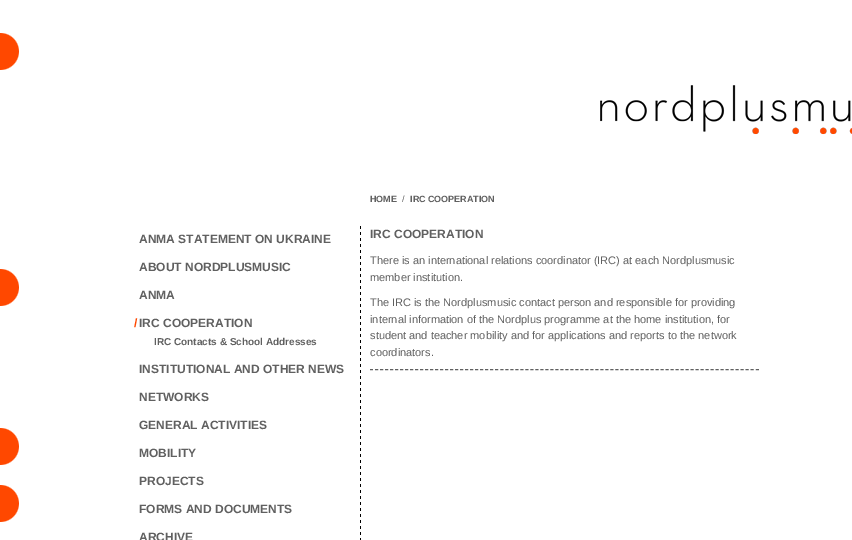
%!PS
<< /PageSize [852 540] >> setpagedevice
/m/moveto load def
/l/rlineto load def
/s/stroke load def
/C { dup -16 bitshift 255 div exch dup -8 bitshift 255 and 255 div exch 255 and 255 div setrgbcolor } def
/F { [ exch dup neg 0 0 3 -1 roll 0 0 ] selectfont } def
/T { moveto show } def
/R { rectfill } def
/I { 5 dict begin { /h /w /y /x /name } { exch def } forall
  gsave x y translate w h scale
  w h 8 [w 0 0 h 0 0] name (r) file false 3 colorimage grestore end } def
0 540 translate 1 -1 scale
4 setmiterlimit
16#FFFFFF C
0 0 852 540 R
(1.rgb) 0 33 19 489 I
(2.rgb) 600 85 252 50 I
/LiberationSans-Bold 12 F
16#606060 C
(ANMA STATEMENT ON UKRAINE) 139 243 T
(ABOUT NORDPLUSMUSIC) 139 271 T
(ANMA) 139 299 T
16#FF4800 C
(/) 134 327 T
16#606060 C
(IRC COOPERATION) 139 327 T
/LiberationSans-Bold 10 F
(IRC Contacts & School Addresses) 154 345 T
/LiberationSans-Bold 12 F
(INSTITUTIONAL AND OTHER NEWS) 139 373 T
(NETWORKS) 139 401 T
(GENERAL ACTIVITIES) 139 429 T
(MOBILITY) 139 457 T
(PROJECTS) 139 485 T
(FORMS AND DOCUMENTS) 139 513 T
(ARCHIVE) 139 541 T
/LiberationSans-Bold 9 F
(HOME) 370 202 T
/LiberationSans-Regular 9 F
(/) 402 202 T
/LiberationSans-Bold 9 F
(IRC COOPERATION) 410 202 T
(3.rgb) 360 226 1 314 I
[3 2.01] 0 setdash
370 369.5 m 389 0 l s
/LiberationSans-Bold 12 F
(IRC COOPERATION) 370 238 T
/LiberationSans-Regular 11 F
(There is an international relations coordinator \(IRC\) at each Nordplusmusic) 370 264 T
(member institution.) 370 281 T
(The IRC is the Nordplusmusic contact person and responsible for providing) 370 306 T
(internal information of the Nordplus programme at the home institution, for) 370 323 T
(student and teacher mobility and for applications and reports to the network) 370 339 T
(coordinators.) 370 356 T
showpage
